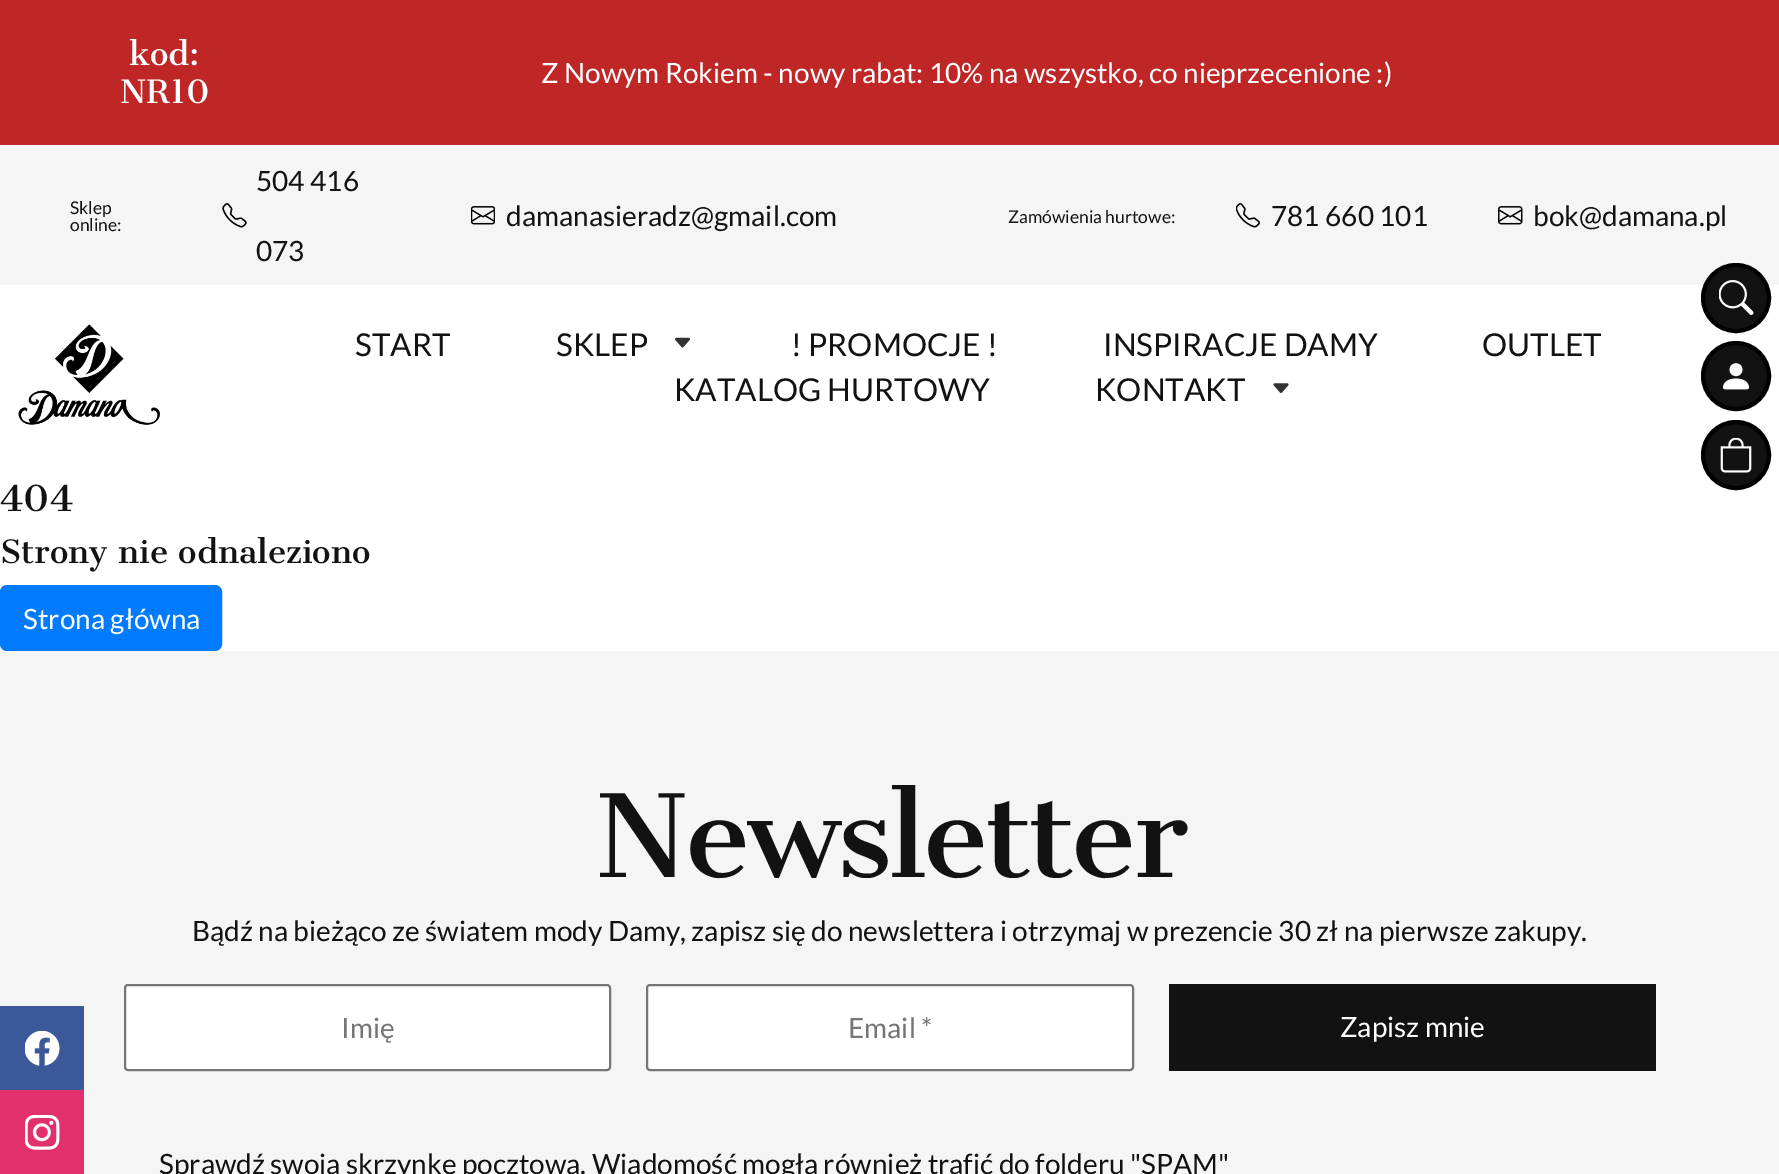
%!PS
<< /PageSize [1779 1174] >> setpagedevice
/m/moveto load def
/f/fill load def
/s/stroke load def
/q/gsave load def
/Q_/grestore load def
/w/setlinewidth load def
/C { dup -16 bitshift 255 div exch dup -8 bitshift 255 and 255 div exch 255 and 255 div setrgbcolor } def
/F { [ exch dup neg 0 0 3 -1 roll 0 0 ] selectfont } def
/T { moveto show } def
/R { rectfill } def
/O { newpath 0 360 arc closepath } def
/Q { 5 dict begin { /r /h /w /y /x } { exch def } forall
  x r add y moveto x w add y 2 copy h add r arct x w add y h add x 1 index r arct
  x y h add x y r arct x y 2 copy exch w add exch r arct closepath end } def
/I { 5 dict begin { /h /w /y /x /name } { exch def } forall
  gsave x y translate w h scale
  w h 8 [w 0 0 h 0 0] name (r) file false 3 colorimage grestore end } def
0 1174 translate 1 -1 scale
4 setmiterlimit
16#FFFFFF C
0 0 1779 1174 R
16#BF2626 C
0 0 1779 145 R
/CantataOne-Regular 31.5 F
16#FFFFFF C
(kod:) 129 65 T
(NR10) 120 103 T
/Lato-Regular 28 F
(Z Nowym Rokiem - nowy rabat: 10% na wszystko, co nieprzecenione :\)) 541 83 T
16#F5F5F5 C
0 145 1779 140 R
/Lato-Regular 17.5 F
16#121212 C
(Sklep) 70 214 T
(online:) 70 231 T
/Lato-Regular 28 F
(504 416) 256 191 T
(1.rgb) 222 203 25 25 I
(073) 256 261 T
(2.rgb) 471 206 24 19 I
(damanasieradz@gmail.com) 506 226 T
/Lato-Regular 17.5 F
(Zamówienia hurtowe:) 1008 223 T
(3.rgb) 1236 203 24 25 I
/Lato-Regular 28 F
(781 660 101) 1271 226 T
(4.rgb) 1498 206 25 19 I
(bok@damana.pl) 1533 226 T
(5.rgb) 18 324 142 101 I
/Lato-Regular 31.5 F
(START) 355 356 T
(SKLEP) 556 356 T
(6.rgb) 674 337 17 11 I
(! PROMOCJE !) 791 356 T
(INSPIRACJE DAMY) 1103 356 T
(OUTLET) 1482 356 T
(KATALOG HURTOWY) 674 401 T
(KONTAKT) 1095 401 T
(7.rgb) 1273 383 16 10 I
1736 298 33 O q f Q_
16#000000 C
4 w
s
(8.rgb) 1719 280 35 35 I
16#121212 C
1736 376 33 O q f Q_
16#000000 C
s
(9.rgb) 1722 363 28 27 I
16#121212 C
1736 455 33 O q f Q_
16#000000 C
s
(10.rgb) 1720 438 32 35 I
/CantataOne-Regular 35 F
16#121212 C
(404) 0 511 T
/CantataOne-Regular 31.5 F
(Strony nie odnaleziono) 0 563 T
16#007BFF C
1 586 220 64 6 Q q f Q_
2 w
s
/Lato-Regular 28 F
16#FFFFFF C
(Strona główna) 23 629 T
16#F5F5F5 C
0 651 1779 523 R
16#3B5998 C
0 1006 84 84 R
(11.rgb) 25 1031 35 35 I
16#E1306C C
0 1090 84 84 R
(12.rgb) 25 1115 35 35 I
/CantataOne-Regular 112 F
16#121212 C
595 877 m -3.5 0 (Newsletter) ashow
/Lato-Regular 28 F
(Bądź na bieżąco ze światem mody Damy, zapisz się do newslettera i otrzymaj w prezencie 30 zł na pierwsze zakupy.) 192 941 T
16#FFFFFF C
125 985 485 85 3 Q q f Q_
16#767676 C
s
16#757575 C
(Imię) 341 1038 T
16#FFFFFF C
647 985 486 85 3 Q q f Q_
16#767676 C
s
16#757575 C
(Email *) 848 1038 T
16#121212 C
1169 984 487 87 R
16#FFFFFF C
(Zapisz mnie) 1340 1037 T
16#121212 C
(Sprawdź swoją skrzynkę pocztową. Wiadomość mogła również trafić do folderu "SPAM") 159 1174 T
showpage
